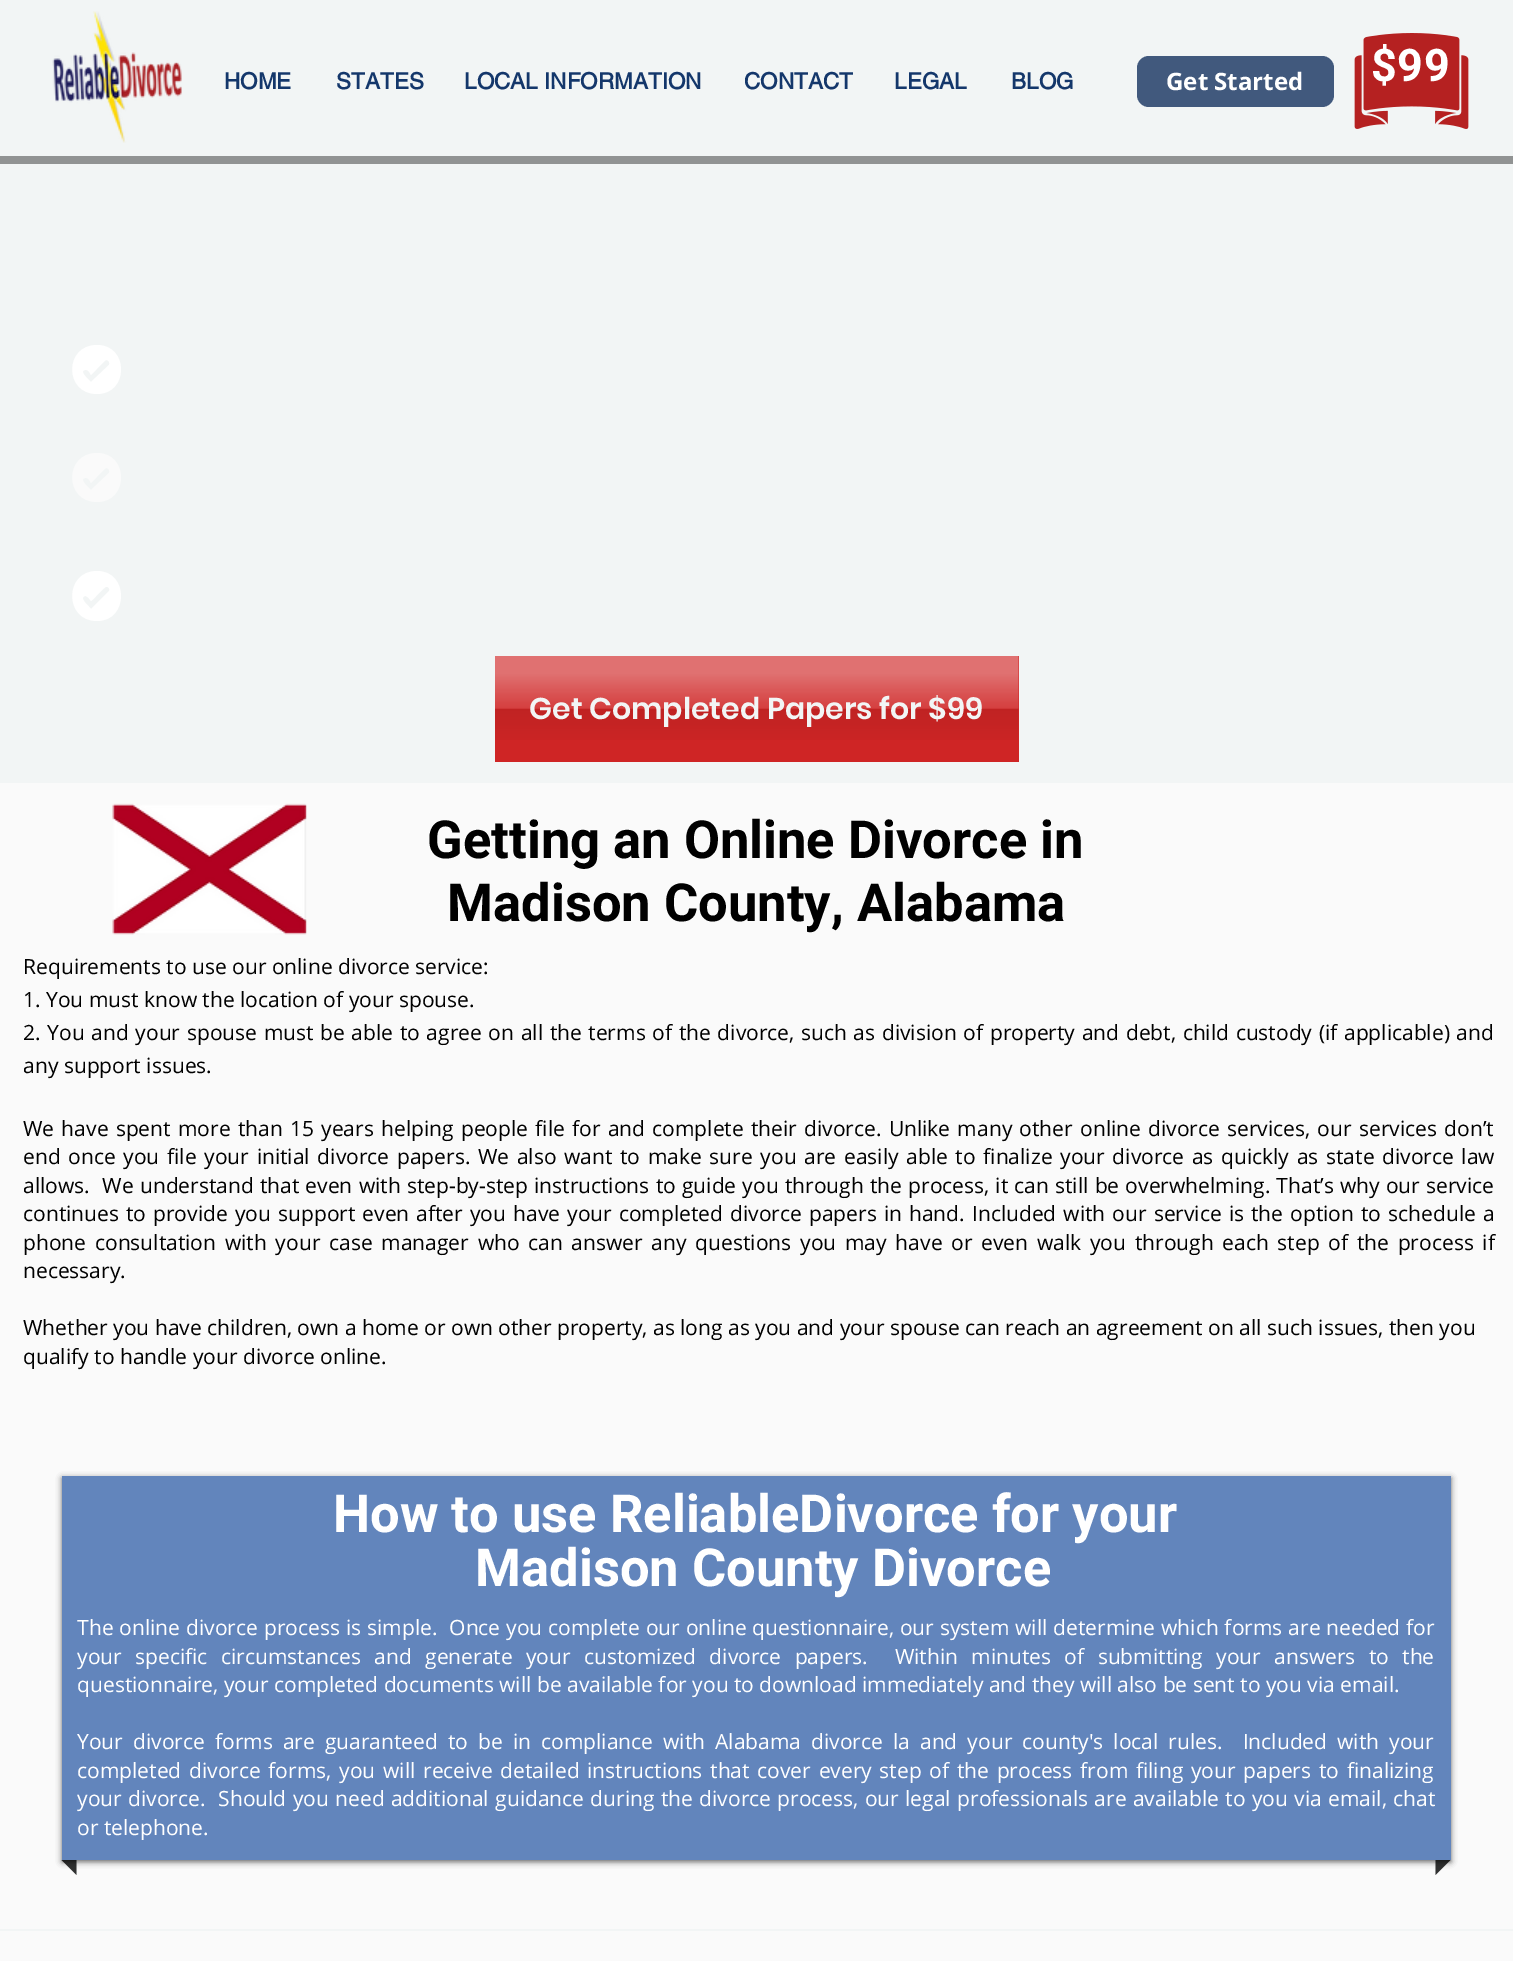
%!PS
<< /PageSize [1513 1961] /PageUsesTransparency true >> setpagedevice
/m/moveto load def
/l/rlineto load def
/c/rcurveto load def
/z/closepath load def
/f/fill load def
/C { dup -16 bitshift 255 div exch dup -8 bitshift 255 and 255 div exch 255 and 255 div setrgbcolor } def
/F { [ exch dup neg 0 0 3 -1 roll 0 0 ] selectfont } def
/T { moveto show } def
/R { rectfill } def
/A { dup .setfillconstantalpha .setstrokeconstantalpha } def
/Q { 5 dict begin { /r /h /w /y /x } { exch def } forall
  x r add y moveto x w add y 2 copy h add r arct x w add y h add x 1 index r arct
  x y h add x y r arct x y 2 copy exch w add exch r arct closepath end } def
/S { 12 dict begin { /a /b /q /h /w /y /x } { exch def } forall gsave /was 0 def
  9 -2 -9 { dup b mul 4 div /e exch def 1 sub .425 mul 2.718 exch exp 1 add a .99 .min exch div /now exch def
    1 1 now sub 1 was sub div sub A /was now def
    w h .min e 2 mul add 0 gt { x e sub y e sub w e 2 mul add h e 2 mul add
      q e add b .6 mul add w h .min 2 div e add .min 0 .max Q fill } if } for grestore end } def
/I { 5 dict begin { /h /w /y /x /name } { exch def } forall
  gsave x y translate w h scale
  w h 8 [w 0 0 h 0 0] name (r) file false 3 colorimage grestore end } def
0 .pushpdf14devicefilter
0 1961 translate 1 -1 scale
4 setmiterlimit
16#F2F5F5 C
0 0 1513 1961 R
(1.rgb) 52 11 130 132 I
(2.rgb) 1354 33 115 96 I
/helvetica-Bold 22.5 F
16#14376B C
(HOME) 224 89 T
(STATES) 336 89 T
(LOCAL INFORMATION) 464 89 T
(CONTACT) 744 89 T
(LEGAL) 894 89 T
(BLOG) 1011 89 T
16#41597D C
1137 56 197 51 12 Q f
/OpenSans-Bold 24 F
16#FFFFFF C
(Get Started) 1166 90 T
/Roboto-Bold 45 F
1371 81 m .5 0 ($99) ashow
16#919393 C
0 156 1513 8 R
16#FFFFFF C
97 345 m -33 0 -33 49 0 49 c 32 0 32 -49 0 -49 c z 109 365 m -18 17 l 0 0 -13 -11 -6 -12 c 3 -1 5 3 6 5 c 3 -3 13 -14 15 -15 c 3 0 4 3 3 5 c z f
16#FAFAFA C
97 453 m -33 0 -33 49 0 49 c 32 0 32 -49 0 -49 c z 109 473 m -18 17 l 0 0 -13 -11 -6 -12 c 3 -1 5 3 6 5 c 3 -3 13 -14 15 -15 c 3 0 4 3 3 5 c z f
16#FFFFFF C
97 571 m -33 0 -33 50 0 50 c 32 0 32 -50 0 -50 c z 109 591 m -18 18 l 0 -1 -13 -11 -6 -13 c 3 0 5 4 6 5 c 3 -2 13 -14 15 -14 c 3 -1 4 3 3 4 c z f
16#CF2525 C
495 656 524 106 R
(3.rgb) 495 656 524 84 I
/Poppins-SemiBold 30 F
16#F2F5F5 C
(Get Completed Papers for $99) 529 719 T
16#FAFAFA C
0 783 1513 1146 R
(4.rgb) 112 803 195 132 I
/Roboto-Bold 52.5 F
16#000000 C
(Getting an Online Divorce in) 427 858 T
/OpenSans-Regular 21 F
(Requirements to use our online divorce service:) 23 974 T
(1. You must know the location of your spouse.) 23 1007 T
23 1040 m 1.2 0 32 (2. You and your spouse must be able to agree on all the terms of the divorce, such as division of property and debt, child custody \(if applicable\) and) widthshow
(any support issues.) 23 1073 T
23 1136 m 1.8 0 32 (We have spent more than 15 years helping people file for and complete their divorce. Unlike many other online divorce services, our services don’t) widthshow
23 1164 m 2.2 0 32 (end once you file your initial divorce papers. We also want to make sure you are easily able to finalize your divorce as quickly as state divorce law) widthshow
23 1193 m .75 0 32 (allows.  We understand that even with step-by-step instructions to guide you through the process, it can still be overwhelming. That’s why our service) widthshow
23 1221 m 1.6 0 32 (continues to provide you support even after you have your completed divorce papers in hand. Included with our service is the option to schedule a) widthshow
23 1250 m 3.3 0 32 (phone consultation with your case manager who can answer any questions you may have or even walk you through each step of the process if) widthshow
(necessary.) 23 1278 T
(Whether you have children, own a home or own other property, as long as you and your spouse can reach an agreement on all such issues, then you) 23 1335 T
(qualify to handle your divorce online.) 23 1364 T
/Roboto-Bold 52.5 F
(Madison County, Alabama) 447 921 T
16#303131 C
61.5 1860 m 15 0 l 0 15 l z f
1435.5 1860 m 15 0 l -15 15 l z f
16#000000 C
62 1478 1389 384 0 3 .6 S
16#6285BC C
62 1476 1389 384 R
16#FFFFFF C
(How to use ReliableDivorce for your) 333 1532 T
(Madison County Divorce) 475 1586 T
/OpenSans-Regular 21 F
77 1635 m .5 0 32 (The online divorce process is simple.  Once you complete our online questionnaire, our system will determine which forms are needed for) widthshow
77 1664 m 7.9 0 32 (your specific circumstances and generate your customized divorce papers.  Within minutes of submitting your answers to the) widthshow
(questionnaire, your completed documents will be available for you to download immediately and they will also be sent to you via email.) 77 1692 T
77 1749 m 4.6 0 32 (Your divorce forms are guaranteed to be in compliance with Alabama divorce la and your county's local rules.  Included with your) widthshow
77 1778 m 2.25 0 32 (completed divorce forms, you will receive detailed instructions that cover every step of the process from filing your papers to finalizing) widthshow
77 1806 m .9 0 32 (your divorce.  Should you need additional guidance during the divorce process, our legal professionals are available to you via email, chat) widthshow
(or telephone.) 77 1835 T
16#FAFAFA C
0 1931 1513 30 R
.poppdf14devicefilter showpage
